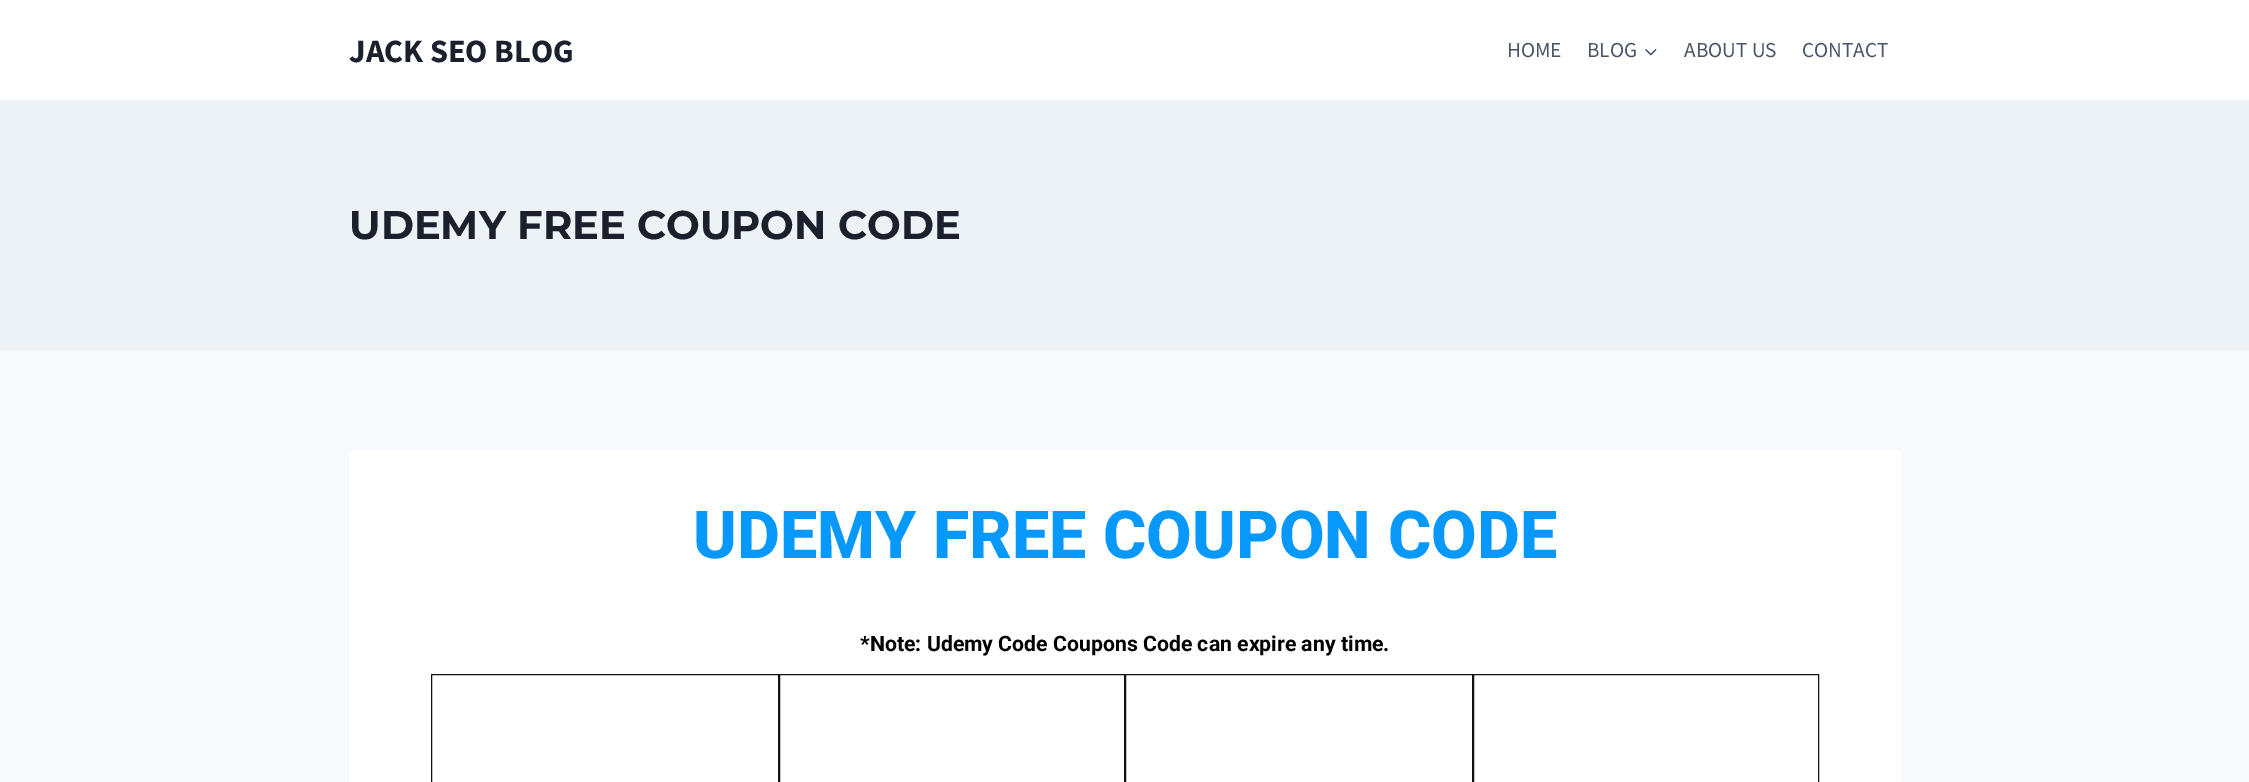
%!PS
<< /PageSize [2249 782] >> setpagedevice
/f/fill load def
/C { dup -16 bitshift 255 div exch dup -8 bitshift 255 and 255 div exch 255 and 255 div setrgbcolor } def
/F { [ exch dup neg 0 0 3 -1 roll 0 0 ] selectfont } def
/T { moveto show } def
/R { rectfill } def
/Q { 5 dict begin { /r /h /w /y /x } { exch def } forall
  x r add y moveto x w add y 2 copy h add r arct x w add y h add x 1 index r arct
  x y h add x y r arct x y 2 copy exch w add exch r arct closepath end } def
/I { 5 dict begin { /h /w /y /x /name } { exch def } forall
  gsave x y translate w h scale
  w h 8 [w 0 0 h 0 0] name (r) file false 3 colorimage grestore end } def
0 782 translate 1 -1 scale
4 setmiterlimit
16#F7FAFC C
0 0 2249 782 R
16#FFFFFF C
0 0 2249 100 R
/SourceSansPro-Bold 32.5 F
16#1A202C C
(JACK SEO BLOG) 349 62 T
/SourceSansPro-Regular 21.25 F
16#4A5568 C
(HOME) 1507 57 T
(BLOG) 1587 57 T
(1.rgb) 1645 49 12 7 I
(ABOUT US) 1684 57 T
(CONTACT) 1802 57 T
16#EDF2F7 C
0 100 2249 250 R
/Montserrat-Thin 40 F
16#1A202C C
(UDEMY FREE COUPON CODE) 349 239 T
16#FFFFFF C
349 450 1552 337 5 Q f
/Roboto-ExtraBold 66.25 F
16#0698FB C
(UDEMY FREE COUPON CODE) 693 558 T
/Roboto-Bold 21.25 F
16#000000 C
(*Note: Udemy Code Coupons Code can expire any time.) 860 651 T
16#131212 C
431.5 674.5 347 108 rectstroke
779.5 674.5 345 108 rectstroke
1125.5 674.5 347 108 rectstroke
1473.5 674.5 345 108 rectstroke
showpage
